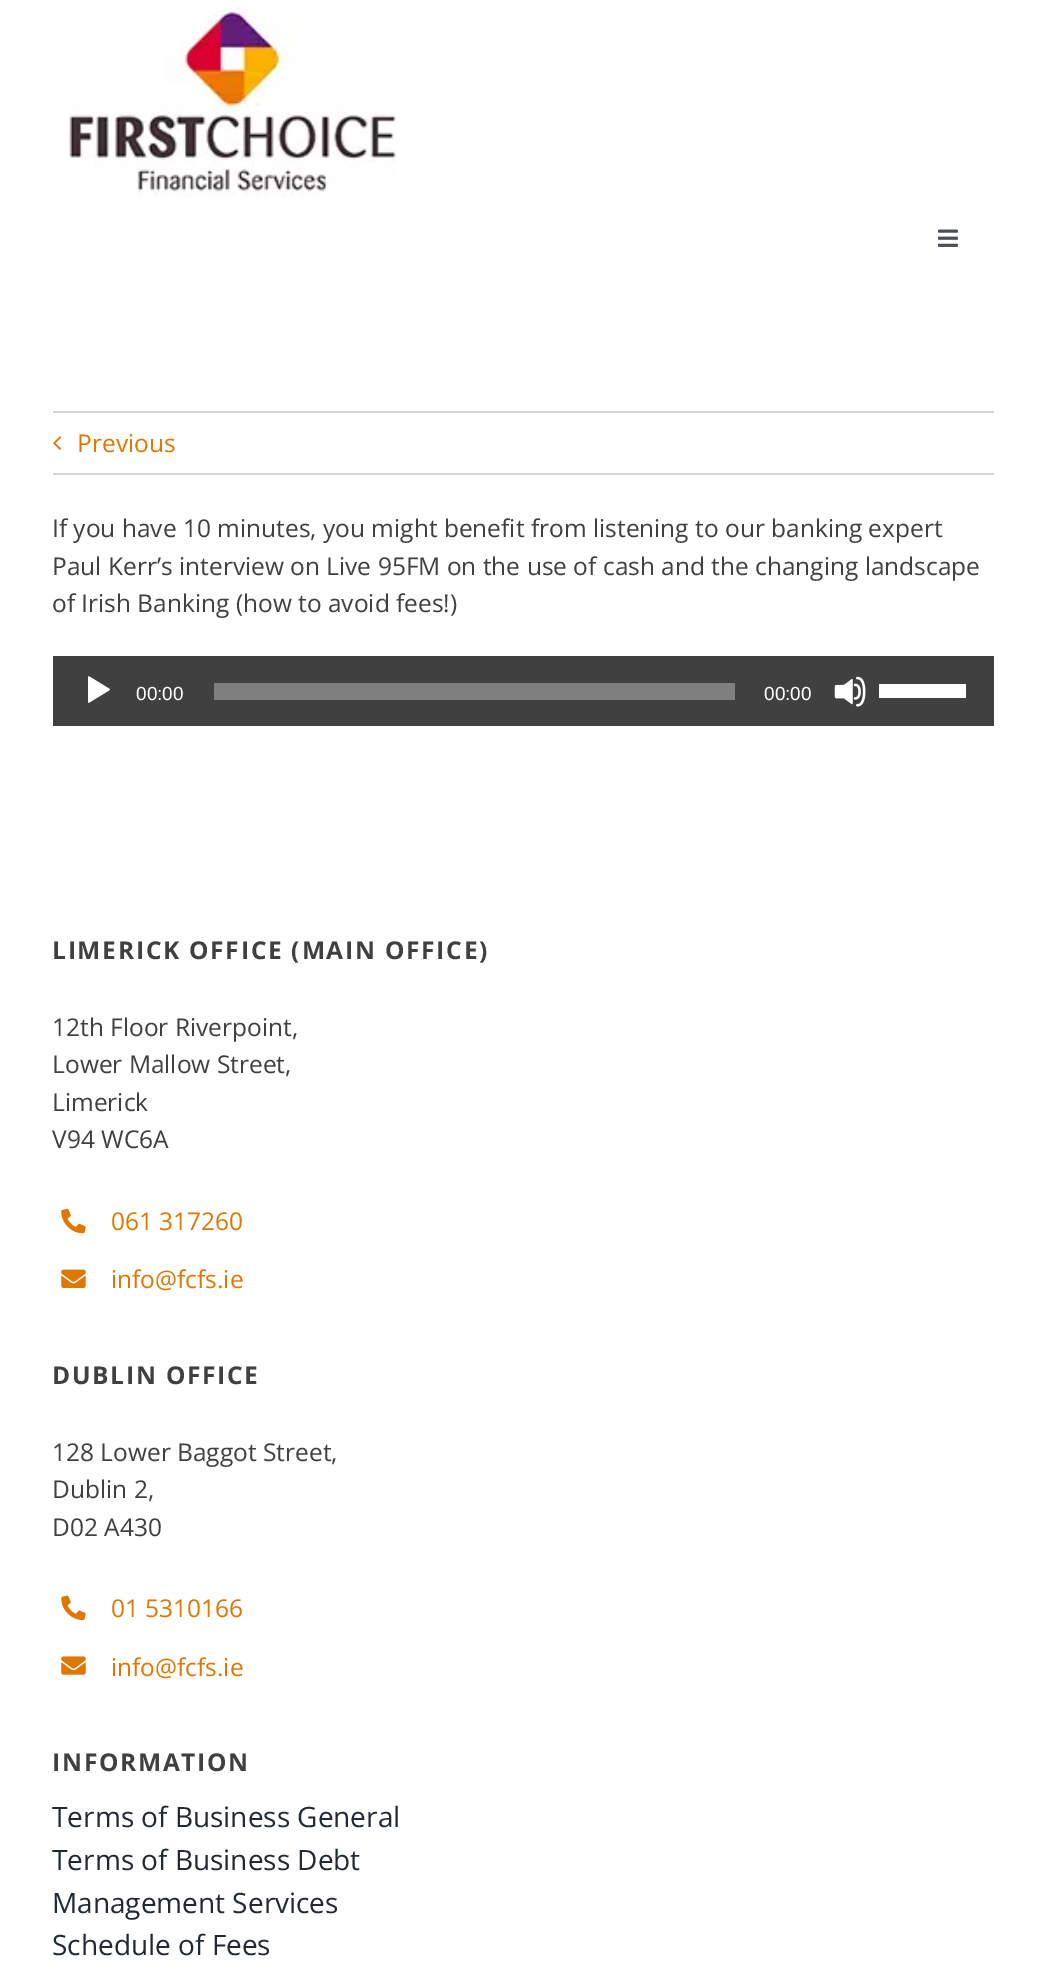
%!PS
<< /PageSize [1045 1980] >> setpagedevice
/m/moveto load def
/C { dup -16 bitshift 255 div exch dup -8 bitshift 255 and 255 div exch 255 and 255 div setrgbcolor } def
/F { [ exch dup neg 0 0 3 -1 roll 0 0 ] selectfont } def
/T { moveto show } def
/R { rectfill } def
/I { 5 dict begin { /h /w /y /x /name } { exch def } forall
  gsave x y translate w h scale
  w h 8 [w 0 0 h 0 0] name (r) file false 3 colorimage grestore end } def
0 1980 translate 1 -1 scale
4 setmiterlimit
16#FFFFFF C
0 0 1045 1980 R
(1.rgb) 67 7 329 190 I
(2.rgb) 938 229 20 18 I
16#D5D5D5 C
53 411 941 2 R
53 473 941 2 R
(3.rgb) 53 436 8 14 I
/OpenSans-Regular 24.5 F
16#DF7702 C
(Previous) 77 452 T
16#404040 C
(If you have 10 minutes, you might benefit from listening to our banking expert) 52 537 T
(Paul Kerr’s interview on Live 95FM on the use of cash and the changing landscape) 52 575 T
(of Irish Banking \(how to avoid fees!\)) 52 612 T
53 656 941 70 R
(4.rgb) 88 676 22 27 I
/LiberationSans-Regular 19 F
16#FFFFFF C
(00:00) 136 700 T
16#7F7F7F C
214 683 521 17 R
16#FFFFFF C
(00:00) 764 700 T
(5.rgb) 834 676 32 31 I
879 684 87 14 R
/OpenSans-Bold 24.5 F
16#404040 C
52 959 m 1.75 0 (LIMERICK OFFICE \(MAIN OFFICE\)) ashow
/OpenSans-Regular 24.5 F
(12th Floor Riverpoint,) 52 1036 T
(Lower Mallow Street,) 52 1073 T
(Limerick) 52 1111 T
(V94 WC6A) 52 1148 T
(6.rgb) 61 1208 25 26 I
16#DF7702 C
(061 317260) 111 1230 T
(7.rgb) 61 1269 25 19 I
(info@fcfs.ie) 111 1288 T
/OpenSans-Bold 24.5 F
16#404040 C
52 1384 m 1.75 0 (DUBLIN OFFICE) ashow
/OpenSans-Regular 24.5 F
(128 Lower Baggot Street,) 52 1461 T
(Dublin 2,) 52 1498 T
(D02 A430) 52 1536 T
(8.rgb) 61 1595 25 26 I
16#DF7702 C
(01 5310166) 111 1617 T
(9.rgb) 61 1656 25 19 I
(info@fcfs.ie) 111 1676 T
/OpenSans-Bold 24.5 F
16#404040 C
52 1771 m 1.75 0 (INFORMATION) ashow
/OpenSans-Regular 28 F
16#212934 C
(Terms of Business General) 52 1827 T
(Terms of Business Debt) 52 1870 T
(Management Services) 52 1913 T
(Schedule of Fees) 52 1955 T
showpage
